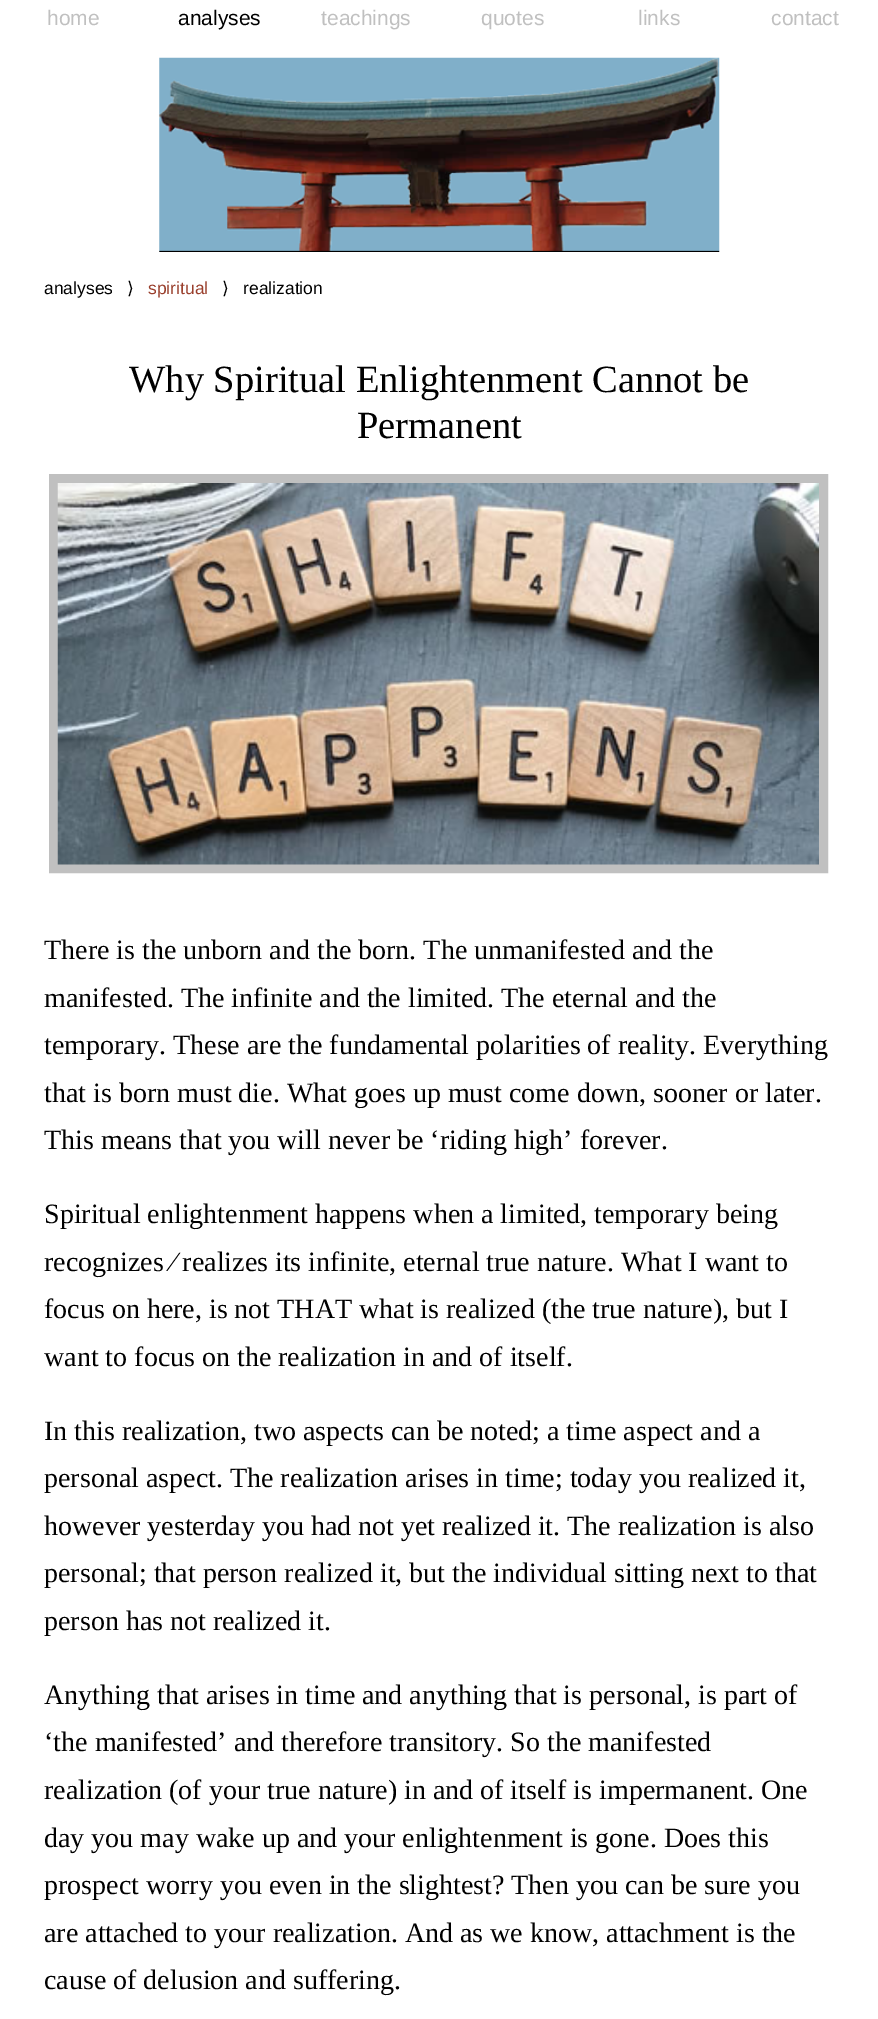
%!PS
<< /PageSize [878 2019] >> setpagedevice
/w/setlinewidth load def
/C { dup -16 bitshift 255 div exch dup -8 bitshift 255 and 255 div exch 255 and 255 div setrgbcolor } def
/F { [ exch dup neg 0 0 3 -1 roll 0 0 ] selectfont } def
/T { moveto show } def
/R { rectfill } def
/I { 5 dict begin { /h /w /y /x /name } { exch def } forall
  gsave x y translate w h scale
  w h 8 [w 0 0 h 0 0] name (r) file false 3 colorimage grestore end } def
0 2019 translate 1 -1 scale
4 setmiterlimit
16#FFFFFF C
0 0 878 2019 R
/LiberationSans-Regular 21 F
16#C0C0C0 C
(home) 47 25 T
16#000000 C
(analyses) 178 25 T
16#C0C0C0 C
(teachings) 321 25 T
(quotes) 481 25 T
(links) 638 25 T
(contact) 771 25 T
(1.rgb) 159 57 561 195 I
/LiberationSans-Regular 17.5 F
16#000000 C
(analyses) 44 294 T
/DejaVuSans-Regular 17.5 F
(⟩) 127 294 T
/LiberationSans-Regular 17.5 F
16#9A3F2D C
(spiritual) 148 294 T
/DejaVuSans-Regular 17.5 F
16#000000 C
(⟩) 222 294 T
/LiberationSans-Regular 17.5 F
(realization) 243 294 T
/LiberationSerif-Regular 38.5 F
(Why Spiritual Enlightenment Cannot be) 129 392 T
(Permanent) 357 438 T
16#C0C0C0 C
9 w
53.5 478.5 770 390 rectstroke
(2.rgb) 57 483 762 382 I
/LiberationSerif-Regular 28 F
16#000000 C
(There is the unborn and the born. The unmanifested and the) 44 959 T
(manifested. The infinite and the limited. The eternal and the) 44 1007 T
(temporary. These are the fundamental polarities of reality. Everything) 44 1054 T
(that is born must die. What goes up must come down, sooner or later.) 44 1102 T
(This means that you will never be ‘riding high’ forever.) 44 1149 T
(Spiritual enlightenment happens when a limited, temporary being) 44 1223 T
(recognizes ⁄ realizes its infinite, eternal true nature. What I want to) 44 1271 T
(focus on here, is not THAT what is realized \(the true nature\), but I) 44 1318 T
(want to focus on the realization in and of itself.) 44 1366 T
(In this realization, two aspects can be noted; a time aspect and a) 44 1440 T
(personal aspect. The realization arises in time; today you realized it,) 44 1487 T
(however yesterday you had not yet realized it. The realization is also) 44 1535 T
(personal; that person realized it, but the individual sitting next to that) 44 1582 T
(person has not realized it.) 44 1630 T
(Anything that arises in time and anything that is personal, is part of) 44 1704 T
(‘the manifested’ and therefore transitory. So the manifested) 44 1751 T
(realization \(of your true nature\) in and of itself is impermanent. One) 44 1799 T
(day you may wake up and your enlightenment is gone. Does this) 44 1847 T
(prospect worry you even in the slightest? Then you can be sure you) 44 1894 T
(are attached to your realization. And as we know, attachment is the) 44 1942 T
(cause of delusion and suffering.) 44 1989 T
showpage
